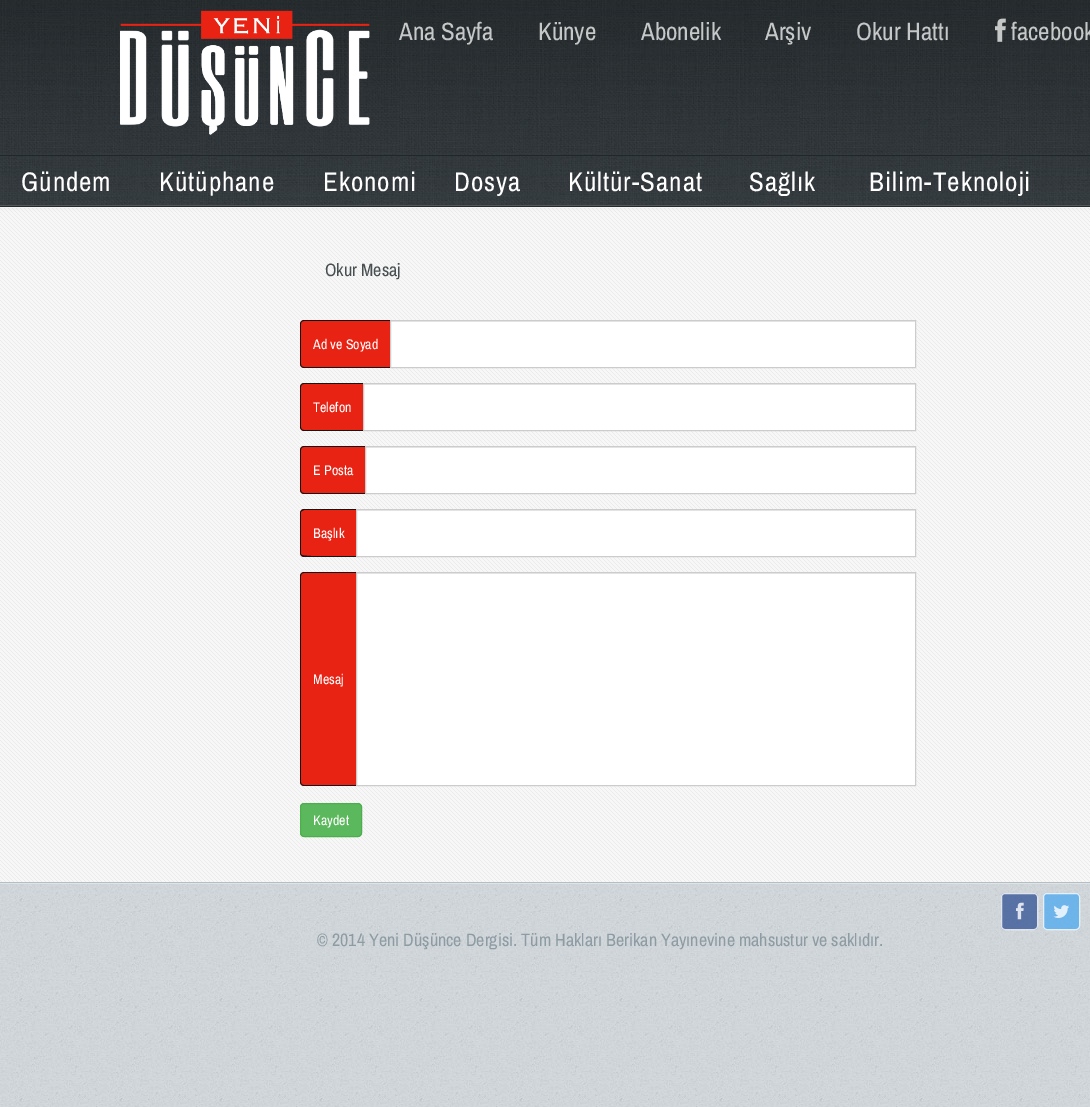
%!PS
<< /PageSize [1090 1107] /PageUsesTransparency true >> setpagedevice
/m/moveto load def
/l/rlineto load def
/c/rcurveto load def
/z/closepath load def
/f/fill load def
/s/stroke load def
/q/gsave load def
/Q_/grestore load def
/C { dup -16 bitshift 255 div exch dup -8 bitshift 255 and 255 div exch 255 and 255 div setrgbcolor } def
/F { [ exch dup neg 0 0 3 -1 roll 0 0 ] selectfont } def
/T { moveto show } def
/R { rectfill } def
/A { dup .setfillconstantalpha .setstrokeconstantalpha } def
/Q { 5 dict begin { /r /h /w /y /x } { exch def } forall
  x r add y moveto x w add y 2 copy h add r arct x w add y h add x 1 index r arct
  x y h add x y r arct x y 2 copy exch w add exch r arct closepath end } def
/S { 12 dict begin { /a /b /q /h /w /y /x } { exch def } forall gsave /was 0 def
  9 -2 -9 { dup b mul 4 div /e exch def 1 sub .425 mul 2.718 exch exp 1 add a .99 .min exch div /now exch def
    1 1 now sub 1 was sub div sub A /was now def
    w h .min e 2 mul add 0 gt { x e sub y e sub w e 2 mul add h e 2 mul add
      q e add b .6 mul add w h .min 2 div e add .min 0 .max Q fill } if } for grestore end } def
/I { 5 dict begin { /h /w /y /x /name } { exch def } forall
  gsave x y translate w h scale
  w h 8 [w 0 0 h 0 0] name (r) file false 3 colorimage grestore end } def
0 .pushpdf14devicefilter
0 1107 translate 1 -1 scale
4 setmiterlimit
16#FFFFFF C
0 0 1090 1107 R
(1.rgb) 0 884 1090 223 I
(2.rgb) 0 0 1090 205 I
16#51575A C
0 205 1090 1 R
16#272D30 C
0 206 1090 1 R
(3.rgb) 120 10 250 125 I
/ArchivoNarrow-Regular 25 F
16#C6C8C8 C
(Ana Sayfa) 399 40 T
(Künye) 538 40 T
(Abonelik) 641 40 T
(Arşiv) 765 40 T
(Okur Hattı) 856 40 T
(4.rgb) 995 18 11 24 I
(facebook) 1011 40 T
16#F7F7F7 C
0 208 1090 674 R
(5.rgb) 0 208 1090 674 I
q
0 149 m 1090 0 l 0 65 l -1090 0 l z 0 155 m 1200 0 l 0 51 l -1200 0 l z eoclip newpath
16#000000 C
0 156 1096 51 0 2 .1 S
Q_
16#222628 C
0 155 1090 1 R
/ArchivoNarrow-Regular 27 F
16#FFFFFF C
21 191 m 1 0 (Gündem) ashow
159 191 m 1 0 (Kütüphane) ashow
323 191 m 1 0 (Ekonomi) ashow
454 191 m 1 0 (Dosya) ashow
568 191 m 1 0 (Kültür-Sanat) ashow
749 191 m 1 0 (Sağlık) ashow
869 191 m 1 0 (Bilim-Teknoloji) ashow
/ArchivoNarrow-Regular 18 F
16#474F51 C
(Okur Mesaj) 325 276 T
16#E82313 C
304 320 m 86 0 l 0 48 l -86 0 l -2 0 -4 -2 -4 -4 c 0 -40 l 0 -2 2 -4 4 -4 c z f
16#151515 C
304 320 m 86 0 l 0 48 l -86 0 l -2 0 -4 -2 -4 -4 c 0 -40 l 0 -2 2 -4 4 -4 c z 304 321 m 86 0 l 0 46 l -86 0 l -2 0 -3 -1 -3 -3 c 0 -40 l 0 -2 1 -3 3 -3 c z eofill
/ArchivoNarrow-Regular 14 F
16#FFFFFF C
(Ad ve Soyad) 313 349 T
391 322 524 45 R
16#ECECEC C
391 321 524 1 R
16#CCCCCC C
390.5 320.5 525 47 rectstroke
16#E82313 C
304 383 m 59 0 l 0 48 l -59 0 l -2 0 -4 -2 -4 -4 c 0 -40 l 0 -2 2 -4 4 -4 c z f
16#151515 C
304 383 m 59 0 l 0 48 l -59 0 l -2 0 -4 -2 -4 -4 c 0 -40 l 0 -2 2 -4 4 -4 c z 304 384 m 59 0 l 0 46 l -59 0 l -2 0 -3 -1 -3 -3 c 0 -40 l 0 -2 1 -3 3 -3 c z eofill
16#FFFFFF C
(Telefon) 313 412 T
364 385 551 45 R
16#ECECEC C
364 384 551 1 R
16#CCCCCC C
363.5 383.5 552 47 rectstroke
16#E82313 C
304 446 m 61 0 l 0 48 l -61 0 l -2 0 -4 -2 -4 -4 c 0 -40 l 0 -2 2 -4 4 -4 c z f
16#151515 C
304 446 m 61 0 l 0 48 l -61 0 l -2 0 -4 -2 -4 -4 c 0 -40 l 0 -2 2 -4 4 -4 c z 304 447 m 61 0 l 0 46 l -61 0 l -2 0 -3 -1 -3 -3 c 0 -40 l 0 -2 1 -3 3 -3 c z eofill
16#FFFFFF C
(E Posta) 313 475 T
366 448 549 45 R
16#ECECEC C
366 447 549 1 R
16#CCCCCC C
365.5 446.5 550 47 rectstroke
16#E82313 C
304 509 m 52 0 l 0 48 l -52 0 l -2 0 -4 -2 -4 -4 c 0 -40 l 0 -2 2 -4 4 -4 c z f
16#151515 C
304 509 m 52 0 l 0 48 l -52 0 l -2 0 -4 -2 -4 -4 c 0 -40 l 0 -2 2 -4 4 -4 c z 304 510 m 52 0 l 0 46 l -6 0 -51 1 -54 -1 c -1 -1 l 0 -42 l 1 -1 l z eofill
16#FFFFFF C
(Başlık) 313 538 T
357 511 558 45 R
16#ECECEC C
357 510 558 1 R
16#CCCCCC C
356.5 509.5 559 47 rectstroke
16#E82313 C
304 572 m 52 0 l 0 214 l -52 0 l -2 0 -4 -2 -4 -4 c 0 -206 l 0 -2 2 -4 4 -4 c z f
16#151515 C
304 572 m 52 0 l 0 214 l -52 0 l -2 0 -4 -2 -4 -4 c 0 -206 l 0 -2 2 -4 4 -4 c z 304 573 m 52 0 l 0 212 l -52 0 l -2 0 -3 -1 -3 -3 c 0 -206 l 0 -2 1 -3 3 -3 c z eofill
16#FFFFFF C
(Mesaj) 313 684 T
357 574 558 211 R
16#ECECEC C
357 573 558 1 R
16#CCCCCC C
356.5 572.5 559 213 rectstroke
16#5CB85C C
300.5 803.5 61 33 3.5 Q q f Q_
16#4CAE4C C
s
16#FFFFFF C
(Kaydet) 313 825 T
16#E0E4E7 C
0 883 1090 1 R
16#B5BEC3 C
0 882 1090 1 R
0.8 A
16#3B5998 C
1001 893 37 37 4 Q f
16#FFFFFF C
1001.5 893.5 36 36 3.5 Q s
1 A
(6.rgb) 1016 902 8 18 I
0.8 A
16#55ACEE C
1043 893 37 37 4 Q f
16#FFFFFF C
1043.5 893.5 36 36 3.5 Q s
1 A
(7.rgb) 1053 905 16 13 I
/ArchivoNarrow-Regular 18 F
16#8D9CA3 C
(© 2014 Yeni Düşünce Dergisi. Tüm Hakları Berikan Yayınevine mahsustur ve saklıdır.) 317 946 T
.poppdf14devicefilter showpage
